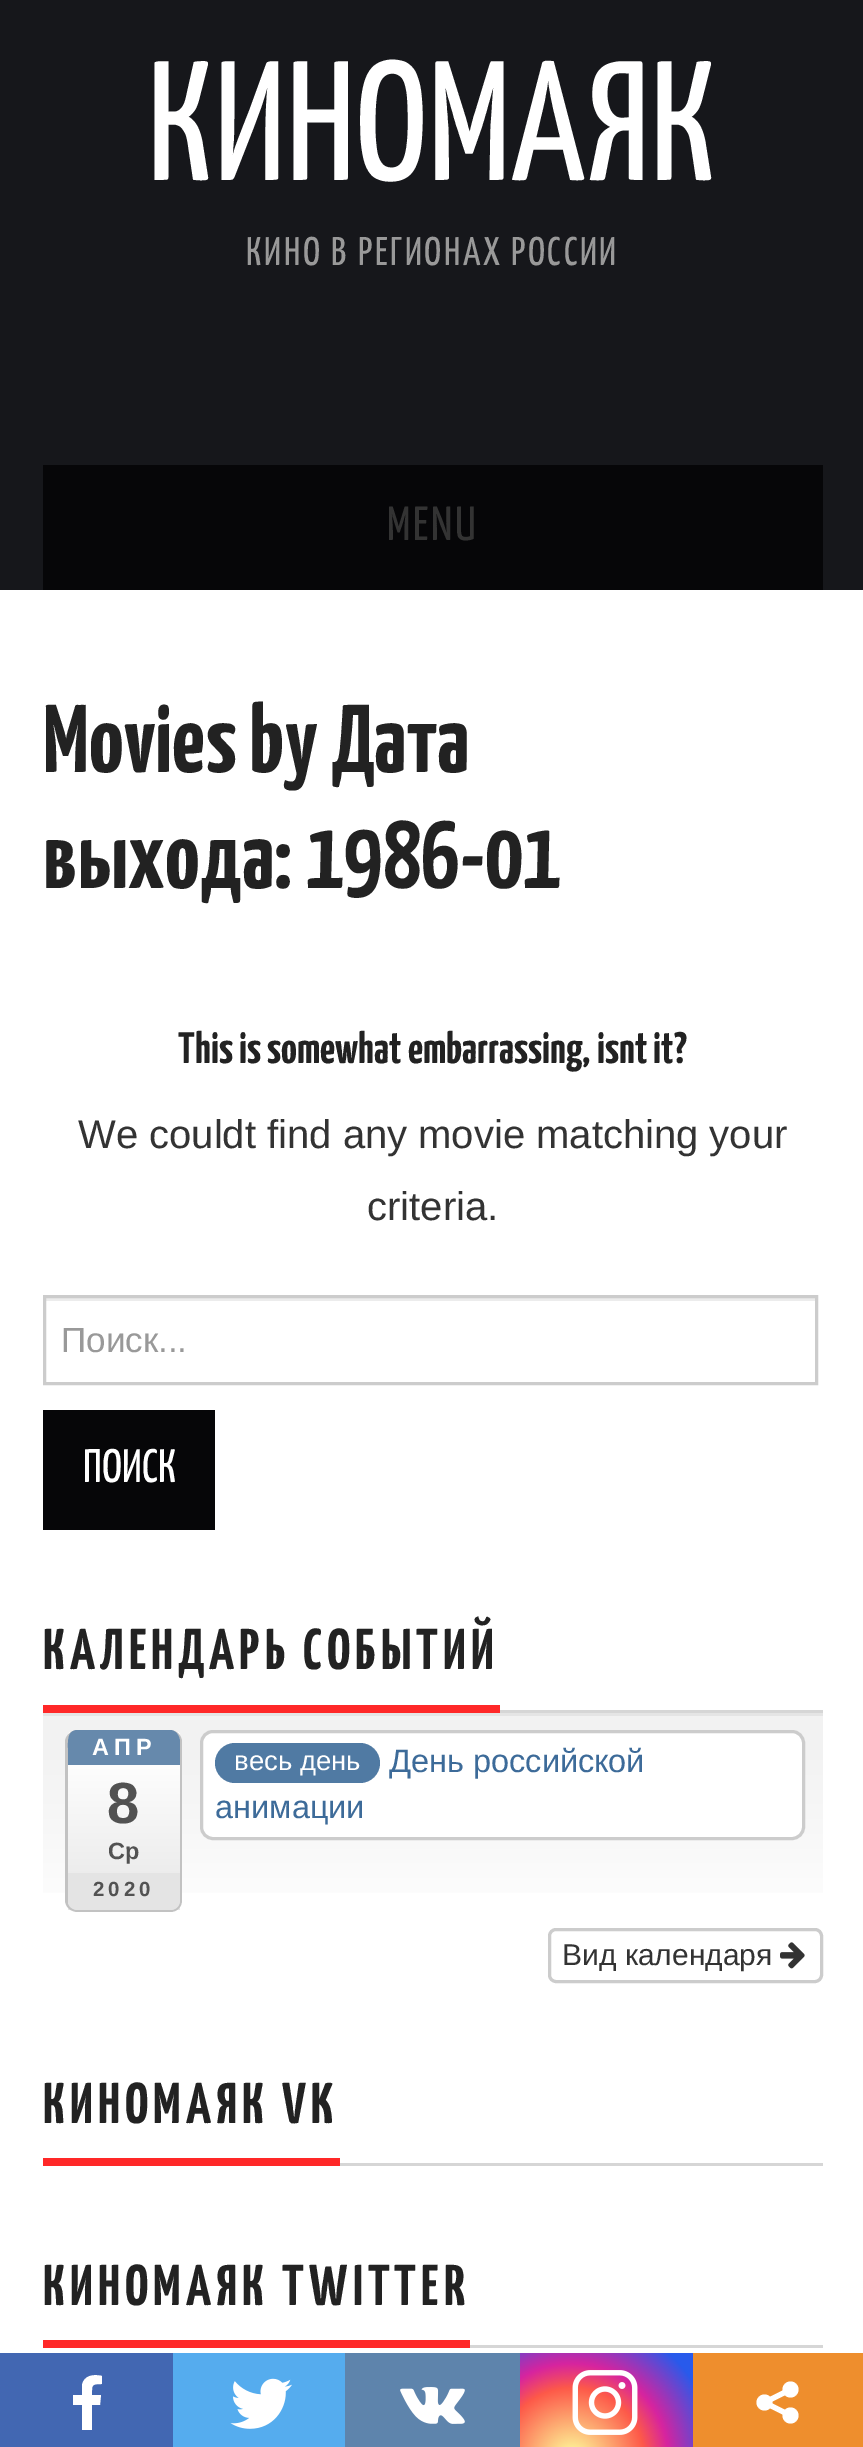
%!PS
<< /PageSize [863 2447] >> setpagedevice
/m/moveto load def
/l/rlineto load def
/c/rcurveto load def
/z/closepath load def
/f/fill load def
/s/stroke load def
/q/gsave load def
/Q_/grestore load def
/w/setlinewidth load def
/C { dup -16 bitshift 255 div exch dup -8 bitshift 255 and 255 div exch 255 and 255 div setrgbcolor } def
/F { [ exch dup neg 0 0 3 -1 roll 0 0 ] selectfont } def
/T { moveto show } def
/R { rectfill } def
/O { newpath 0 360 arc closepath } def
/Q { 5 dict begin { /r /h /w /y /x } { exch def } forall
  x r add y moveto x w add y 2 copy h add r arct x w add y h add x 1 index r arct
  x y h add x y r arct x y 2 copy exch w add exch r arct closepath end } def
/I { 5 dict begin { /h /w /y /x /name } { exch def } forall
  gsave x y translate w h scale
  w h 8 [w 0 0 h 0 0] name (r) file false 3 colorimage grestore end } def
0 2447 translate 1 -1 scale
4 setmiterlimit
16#FFFFFF C
0 0 863 2447 R
16#16171B C
0 0 863 590 R
/YanoneKaffeesatz-Regular 170 F
16#FFFFFF C
(КИНОМАЯК) 147 180 T
/YanoneKaffeesatz-Regular 40 F
16#999999 C
246 265 m 2.5 0 (КИНО В РЕГИОНАХ РОССИИ) ashow
16#060608 C
43 465 780 125 R
/YanoneKaffeesatz-Regular 48 F
16#333333 C
387 540 m 2.5 0 (MENU) ashow
/YanoneKaffeesatz-Bold 96 F
16#222222 C
(Movies by Дата) 43 772 T
(выхода: 1986-01) 43 888 T
/YanoneKaffeesatz-Bold 44 F
(This is somewhat embarrassing, isnt it?) 178 1063 T
/LiberationSans-Regular 40 F
16#333333 C
(We couldt find any movie matching your) 78 1148 T
(criteria.) 367 1220 T
16#4267B2 C
0 2353 173 94 R
16#FFFFFF C
92 2430 m 0 -25 l 8 0 l 1 -10 l -9 0 l 0 -10 -1 -11 10 -11 c 0 -8 l -8 -2 -18 -1 -20 9 c 0 10 l -9 0 l 0 10 l 9 0 l 0 25 l z f
16#55ACEE C
173 2353 172 94 R
(1.rgb) 230 2378 62 51 I
16#5E84AC C
345 2353 175 94 R
(2.rgb) 400 2387 65 37 I
q 520 2353 m 173 0 l 0 94 l -173 0 l z clip newpath 572 2460 translate 161 161 scale
<< /ShadingType 3 /ColorSpace /DeviceRGB /Coords [0 0 0 0 0 1] /Extend [true true] /Function << /FunctionType 3 /Domain [0 1] /Functions [<< /FunctionType 2 /Domain [0 1] /C0 [.992 .957 .592] /C1 [.992 .957 .592] /N 1 >> << /FunctionType 2 /Domain [0 1] /C0 [.992 .957 .592] /C1 [.992 .349 .286] /N 1 >> << /FunctionType 2 /Domain [0 1] /C0 [.992 .349 .286] /C1 [.839 .141 .624] /N 1 >> << /FunctionType 2 /Domain [0 1] /C0 [.839 .141 .624] /C1 [.157 .353 .922] /N 1 >> << /FunctionType 2 /Domain [0 1] /C0 [.157 .353 .922] /C1 [.157 .353 .922] /N 1 >>] /Bounds [.05 .45 .6 .9] /Encode [0 1 0 1 0 1 0 1 0 1] >> >> shfill Q_
(3.rgb) 572 2370 66 65 I
16#EE8E2D C
693 2353 170 94 R
16#FFFFFF C
764.5 2402.5 8 O f
790.5 2389.5 8 O f
790.5 2415.5 8 O f
5.3 w
764.5 2402.5 m 26 -13 l 790.5 2415.5 m -26 -13 l s
16#ECECEC C
45 1298 770 3 R
16#CCCCCC C
3 w
44.5 1296.5 772 87 rectstroke
/LiberationSans-Regular 35 F
16#999999 C
(Поиск...) 61 1352 T
16#060608 C
43 1410 172 120 R
/YanoneKaffeesatz-Regular 47 F
16#FFFFFF C
(ПОИСК) 83 1482 T
16#D6D6D6 C
500 1710 323 3 R
16#FF2828 C
43 1705 457 8 R
/YanoneKaffeesatz-Bold 57.5 F
16#222222 C
43 1669 m 5 0 (КАЛЕНДАРЬ СОБЫТИЙ) ashow
q 43 1716 m 780 0 l 0 177 l -780 0 l z clip newpath
<< /ShadingType 2 /ColorSpace /DeviceRGB /Coords [433 1715 433 1928] /Extend [true true] /Function << /FunctionType 3 /Domain [0 1] /Functions [<< /FunctionType 2 /Domain [0 1] /C0 [.949 .949 .949] /C1 [.949 .949 .949] /N 1 >> << /FunctionType 2 /Domain [0 1] /C0 [.949 .949 .949] /C1 [1 1 1] /N 1 >>] /Bounds [.15] /Encode [0 1 0 1] >> >> shfill Q_
16#E5E5E5 C
43 1713 780 3 R
q
65 1730 118 183 13 Q clip newpath
q 68 1730 m 112 0 l 0 180 l -112 0 l z clip newpath
<< /ShadingType 2 /ColorSpace /DeviceRGB /Coords [124 1730 124 1910] /Extend [true true] /Function << /FunctionType 3 /Domain [0 1] /Functions [<< /FunctionType 2 /Domain [0 1] /C0 [1 1 1] /C1 [1 1 1] /N 1 >> << /FunctionType 2 /Domain [0 1] /C0 [1 1 1] /C1 [.906 .906 .906] /N 1 >>] /Bounds [.16] /Encode [0 1 0 1] >> >> shfill Q_
Q_
16#C2C2C2 C
78 1730 m 92 0 l 7 0 12 6 12 12 c 0 158 l 0 7 -5 12 -12 12 c -92 0 l -7 0 -13 -5 -13 -12 c 0 -158 l 0 -6 6 -12 13 -12 c z 78 1730 m 92 0 l 6 0 10 6 10 12 c 0 158 l 0 6 -4 10 -10 10 c -92 0 l -6 0 -10 -4 -10 -10 c 0 -158 l 0 -6 4 -12 10 -12 c z eofill
16#6689AC C
78 1730 m 92 0 l 6 0 10 6 10 12 c 0 23 l -112 0 l 0 -17 l 0 -7 -1 -18 10 -18 c z f
/LiberationSans-Bold 23.5 F
16#FFFFFF C
92 1755 m 5 0 (АПР) ashow
/LiberationSans-Bold 58 F
16#525252 C
(8) 107 1823 T
/LiberationSans-Bold 23.5 F
(Ср) 108 1859 T
16#E4E4E4 C
68 1873 m 0 30 l 1 4 5 7 10 7 c 92 0 l 6 0 10 -4 10 -10 c 0 -27 l z f
/LiberationSans-Bold 20.5 F
16#525252 C
93 1896 m 4 0 (2020) ashow
16#FFFFFF C
201.5 1731.5 602 107 11.5 Q q f Q_
16#CCCCCC C
s
16#507AA3 C
215 1743 165 40 20 Q f
/LiberationSans-Regular 27.5 F
16#FFFFFF C
(весь день) 234 1770 T
/LiberationSans-Regular 32.5 F
16#3D6B99 C
(День российской) 389 1772 T
(анимации) 215 1818 T
16#CCCCCC C
549.5 1929.5 272 52 6.5 Q s
/LiberationSans-Regular 30 F
16#333333 C
(Вид календаря) 562 1965 T
(4.rgb) 780 1942 25 27 I
16#D6D6D6 C
340 2163 483 3 R
16#FF2828 C
43 2158 297 8 R
/YanoneKaffeesatz-Bold 57.5 F
16#222222 C
43 2123 m 5 0 (КИНОМАЯК VK) ashow
16#D6D6D6 C
470 2345 353 3 R
16#FF2828 C
43 2340 427 8 R
16#222222 C
43 2305 m 5 0 (КИНОМАЯК TWITTER) ashow
showpage
